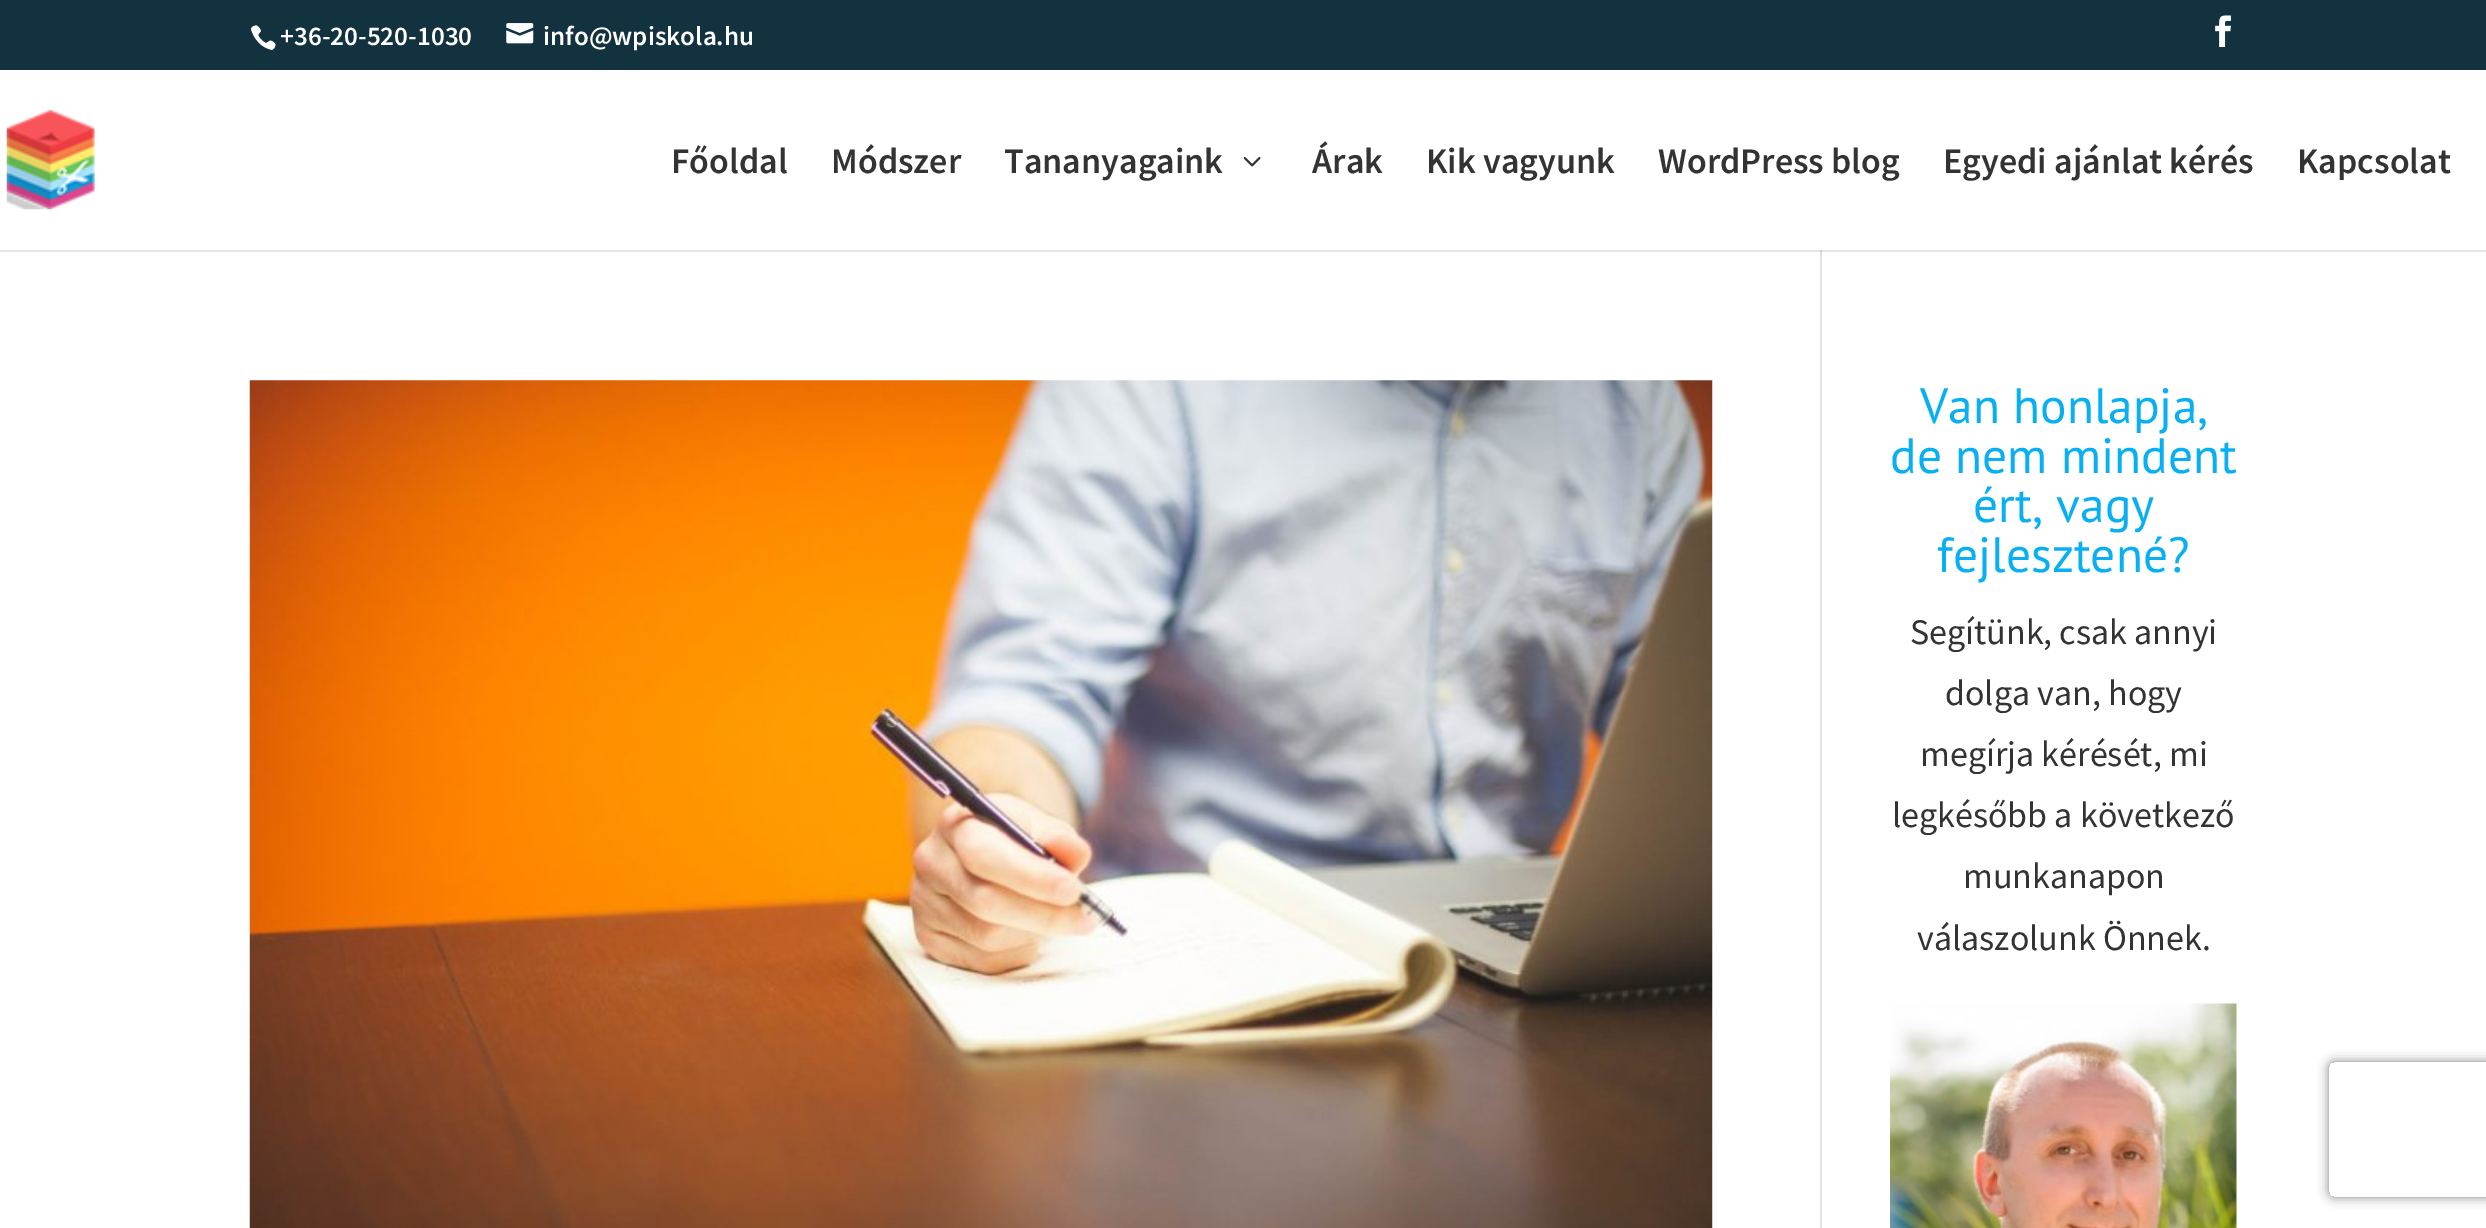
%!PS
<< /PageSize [2486 1228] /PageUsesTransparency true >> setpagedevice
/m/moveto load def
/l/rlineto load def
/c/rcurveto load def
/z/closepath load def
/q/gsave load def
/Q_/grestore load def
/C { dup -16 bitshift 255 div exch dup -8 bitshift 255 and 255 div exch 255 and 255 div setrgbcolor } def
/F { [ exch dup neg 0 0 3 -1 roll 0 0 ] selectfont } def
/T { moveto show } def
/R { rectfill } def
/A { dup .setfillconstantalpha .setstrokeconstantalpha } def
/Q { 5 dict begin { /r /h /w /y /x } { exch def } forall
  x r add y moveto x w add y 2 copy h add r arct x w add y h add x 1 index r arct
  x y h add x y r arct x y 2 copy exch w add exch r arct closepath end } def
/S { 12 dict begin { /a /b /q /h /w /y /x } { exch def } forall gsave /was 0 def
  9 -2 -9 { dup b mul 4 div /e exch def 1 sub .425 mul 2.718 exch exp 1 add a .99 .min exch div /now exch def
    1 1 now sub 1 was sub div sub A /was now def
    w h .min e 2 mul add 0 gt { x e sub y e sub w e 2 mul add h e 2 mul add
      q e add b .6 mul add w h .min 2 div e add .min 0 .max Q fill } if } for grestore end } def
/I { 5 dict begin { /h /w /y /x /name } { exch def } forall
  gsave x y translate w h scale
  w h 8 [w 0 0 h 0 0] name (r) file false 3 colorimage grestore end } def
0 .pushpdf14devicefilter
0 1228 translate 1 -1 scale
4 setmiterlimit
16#FFFFFF C
0 0 2486 1228 R
16#E6E6E6 C
0 250 2486 2 R
16#11323E C
0 0 2486 70 R
(1.rgb) 250 25 26 26 I
/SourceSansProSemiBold-SemiBold 27 F
16#FFFFFF C
(+36-20-520-1030) 280 45 T
(2.rgb) 506 23 28 21 I
(info@wpiskola.hu) 543 45 T
(3.rgb) 2215 15 16 32 I
(4.rgb) 6 110 89 100 I
/SourceSansProSemiBold-SemiBold 36 F
16#333333 C
(Főoldal) 671 173 T
(Módszer) 831 173 T
(Tananyagaink) 1004 173 T
(5.rgb) 1243 157 18 10 I
(Árak) 1312 173 T
(Kik vagyunk) 1426 173 T
(WordPress blog) 1658 173 T
(Egyedi ajánlat kérés) 1943 173 T
(Kapcsolat) 2297 173 T
16#E2E2E2 C
1820 250 2 978 R
16#CBCBCB C
1820 250 2 2 R
(6.rgb) 249 380 1464 848 I
/PTSans-Regular 49.5 F
16#08B0F3 C
(Van honlapja,) 1920 423 T
(de nem mindent) 1890 473 T
(ért, vagy) 1973 522 T
(fejlesztené?) 1937 572 T
/SourceSansPro-Regular 36 F
16#333333 C
(Segítünk, csak annyi) 1910 644 T
(dolga van, hogy) 1945 705 T
(megírja kérését, mi) 1920 766 T
(legkésőbb a következő) 1892 827 T
(munkanapon) 1963 888 T
(válaszolunk Önnek.) 1917 950 T
(7.rgb) 1890 1003 347 225 I
q
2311 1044 m 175 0 l 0 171 l -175 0 l z 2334 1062 m 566 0 l 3 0 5 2 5 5 c 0 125 l 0 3 -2 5 -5 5 c -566 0 l -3 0 -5 -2 -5 -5 c 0 -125 l 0 -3 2 -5 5 -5 c z eoclip newpath
16#808080 C
2329 1062 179 135 5 5.5 1 S
Q_
.poppdf14devicefilter showpage
